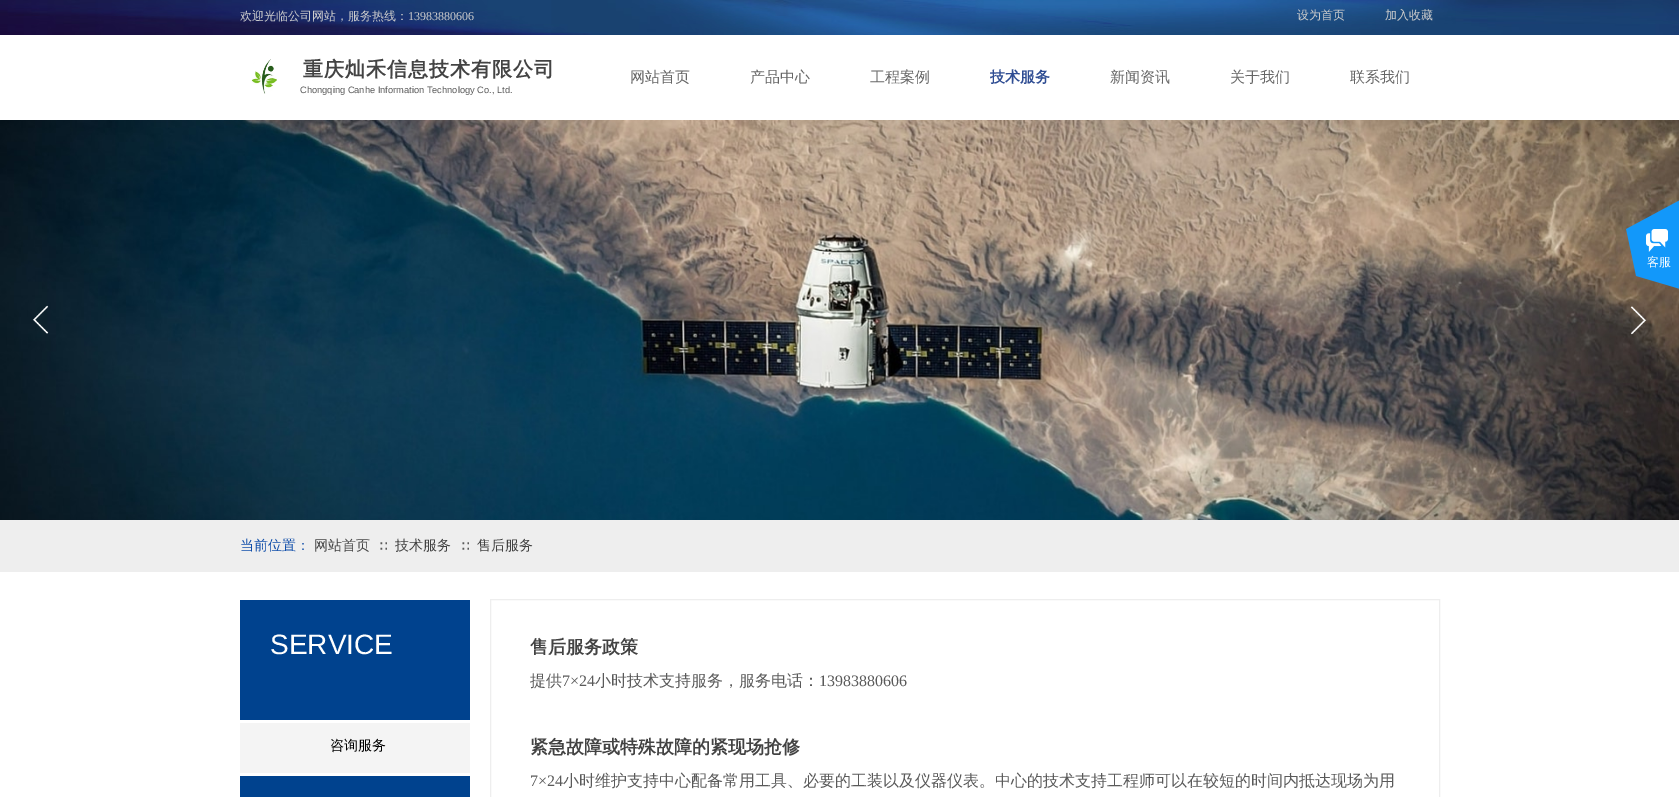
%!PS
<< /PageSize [1679 797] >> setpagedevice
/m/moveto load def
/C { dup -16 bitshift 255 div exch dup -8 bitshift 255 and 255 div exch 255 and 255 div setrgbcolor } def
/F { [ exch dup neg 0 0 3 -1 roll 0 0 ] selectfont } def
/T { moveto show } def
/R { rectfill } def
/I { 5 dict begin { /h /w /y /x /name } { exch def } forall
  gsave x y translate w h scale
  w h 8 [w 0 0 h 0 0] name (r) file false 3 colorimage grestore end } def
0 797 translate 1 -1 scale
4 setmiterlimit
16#FFFFFF C
0 0 1679 797 R
(1.rgb) 0 0 1679 35 I
/WenQuanYiZenHei-Medium 12 F
16#CCCCCC C
(欢迎光临公司网站，服务热线：) 240 20 T
/LiberationSerif-Regular 12 F
(13983880606) 408 20 T
/WenQuanYiZenHei-Medium 12 F
(设为首页) 1297 19 T
(加入收藏) 1385 19 T
(2.rgb) 251 59 26 35 I
/WenQuanYiZenHei-Bold 20 F
16#434343 C
303 76 m 1 0 (重庆灿禾信息技术有限公司) ashow
/WenQuanYiZenHei-Medium 15 F
16#666666 C
(网站首页) 630 82 T
(产品中心) 750 82 T
(工程案例) 870 82 T
/WenQuanYiZenHei-Bold 15 F
16#2F4D93 C
(技术服务) 990 82 T
/WenQuanYiZenHei-Medium 15 F
16#666666 C
(新闻资讯) 1110 82 T
(关于我们) 1230 82 T
(联系我们) 1350 82 T
/LiberationSans-Regular 9.3 F
16#5A5A5A C
(Chongqing Canhe Information Technology Co., Ltd.) 300 93 T
(3.rgb) 0 120 1679 400 I
(4.rgb) 32 305 17 29 I
(5.rgb) 1630 306 17 29 I
16#EEEEEE C
0 520 1679 52 R
/WenQuanYiZenHei-Medium 14 F
16#104EAA C
(当前位置：) 240 550 T
16#434343 C
(网站首页) 314 550 T
/WenQuanYiZenHei-Medium 12 F
16#5A5A5A C
(∷) 378 550 T
/WenQuanYiZenHei-Medium 14 F
16#434343 C
(技术服务) 395 550 T
/WenQuanYiZenHei-Medium 12 F
16#5A5A5A C
(∷) 460 550 T
/WenQuanYiZenHei-Medium 14 F
16#434343 C
(售后服务) 477 550 T
16#00428E C
240 600 230 120 R
/LiberationSans-Regular 28 F
16#FFFFFF C
(SERVICE) 270 654 T
16#EEEEEE C
490.5 599.5 949 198 rectstroke
/WenQuanYiZenHei-Bold 18 F
16#434343 C
(售后服务政策) 530 653 T
/WenQuanYiZenHei-Medium 16 F
16#5A5A5A C
(提供) 530 686 T
/LiberationSerif-Regular 16 F
(7×24) 562 686 T
/WenQuanYiZenHei-Medium 16 F
(小时技术支持服务，服务电话：) 595 686 T
/LiberationSerif-Regular 16 F
(13983880606) 819 686 T
/WenQuanYiZenHei-Bold 18 F
16#434343 C
(紧急故障或特殊故障的紧现场抢修) 530 753 T
/LiberationSerif-Regular 16 F
16#5A5A5A C
(7×24) 530 786 T
/WenQuanYiZenHei-Medium 16 F
(小时维护支持中心配备常用工具、必要的工装以及仪器仪表。中心的技术支持工程师可以在较短的时间内抵达现场为用) 563 786 T
16#F4F4F4 C
240 723 230 50 R
/WenQuanYiZenHei-Medium 14 F
16#000000 C
(咨询服务) 330 750 T
16#00428E C
240 776 230 21 R
(6.rgb) 1626 200 53 89 I
/WenQuanYiZenHei-Medium 12 F
16#FFFFFF C
(客服) 1647 266 T
showpage
